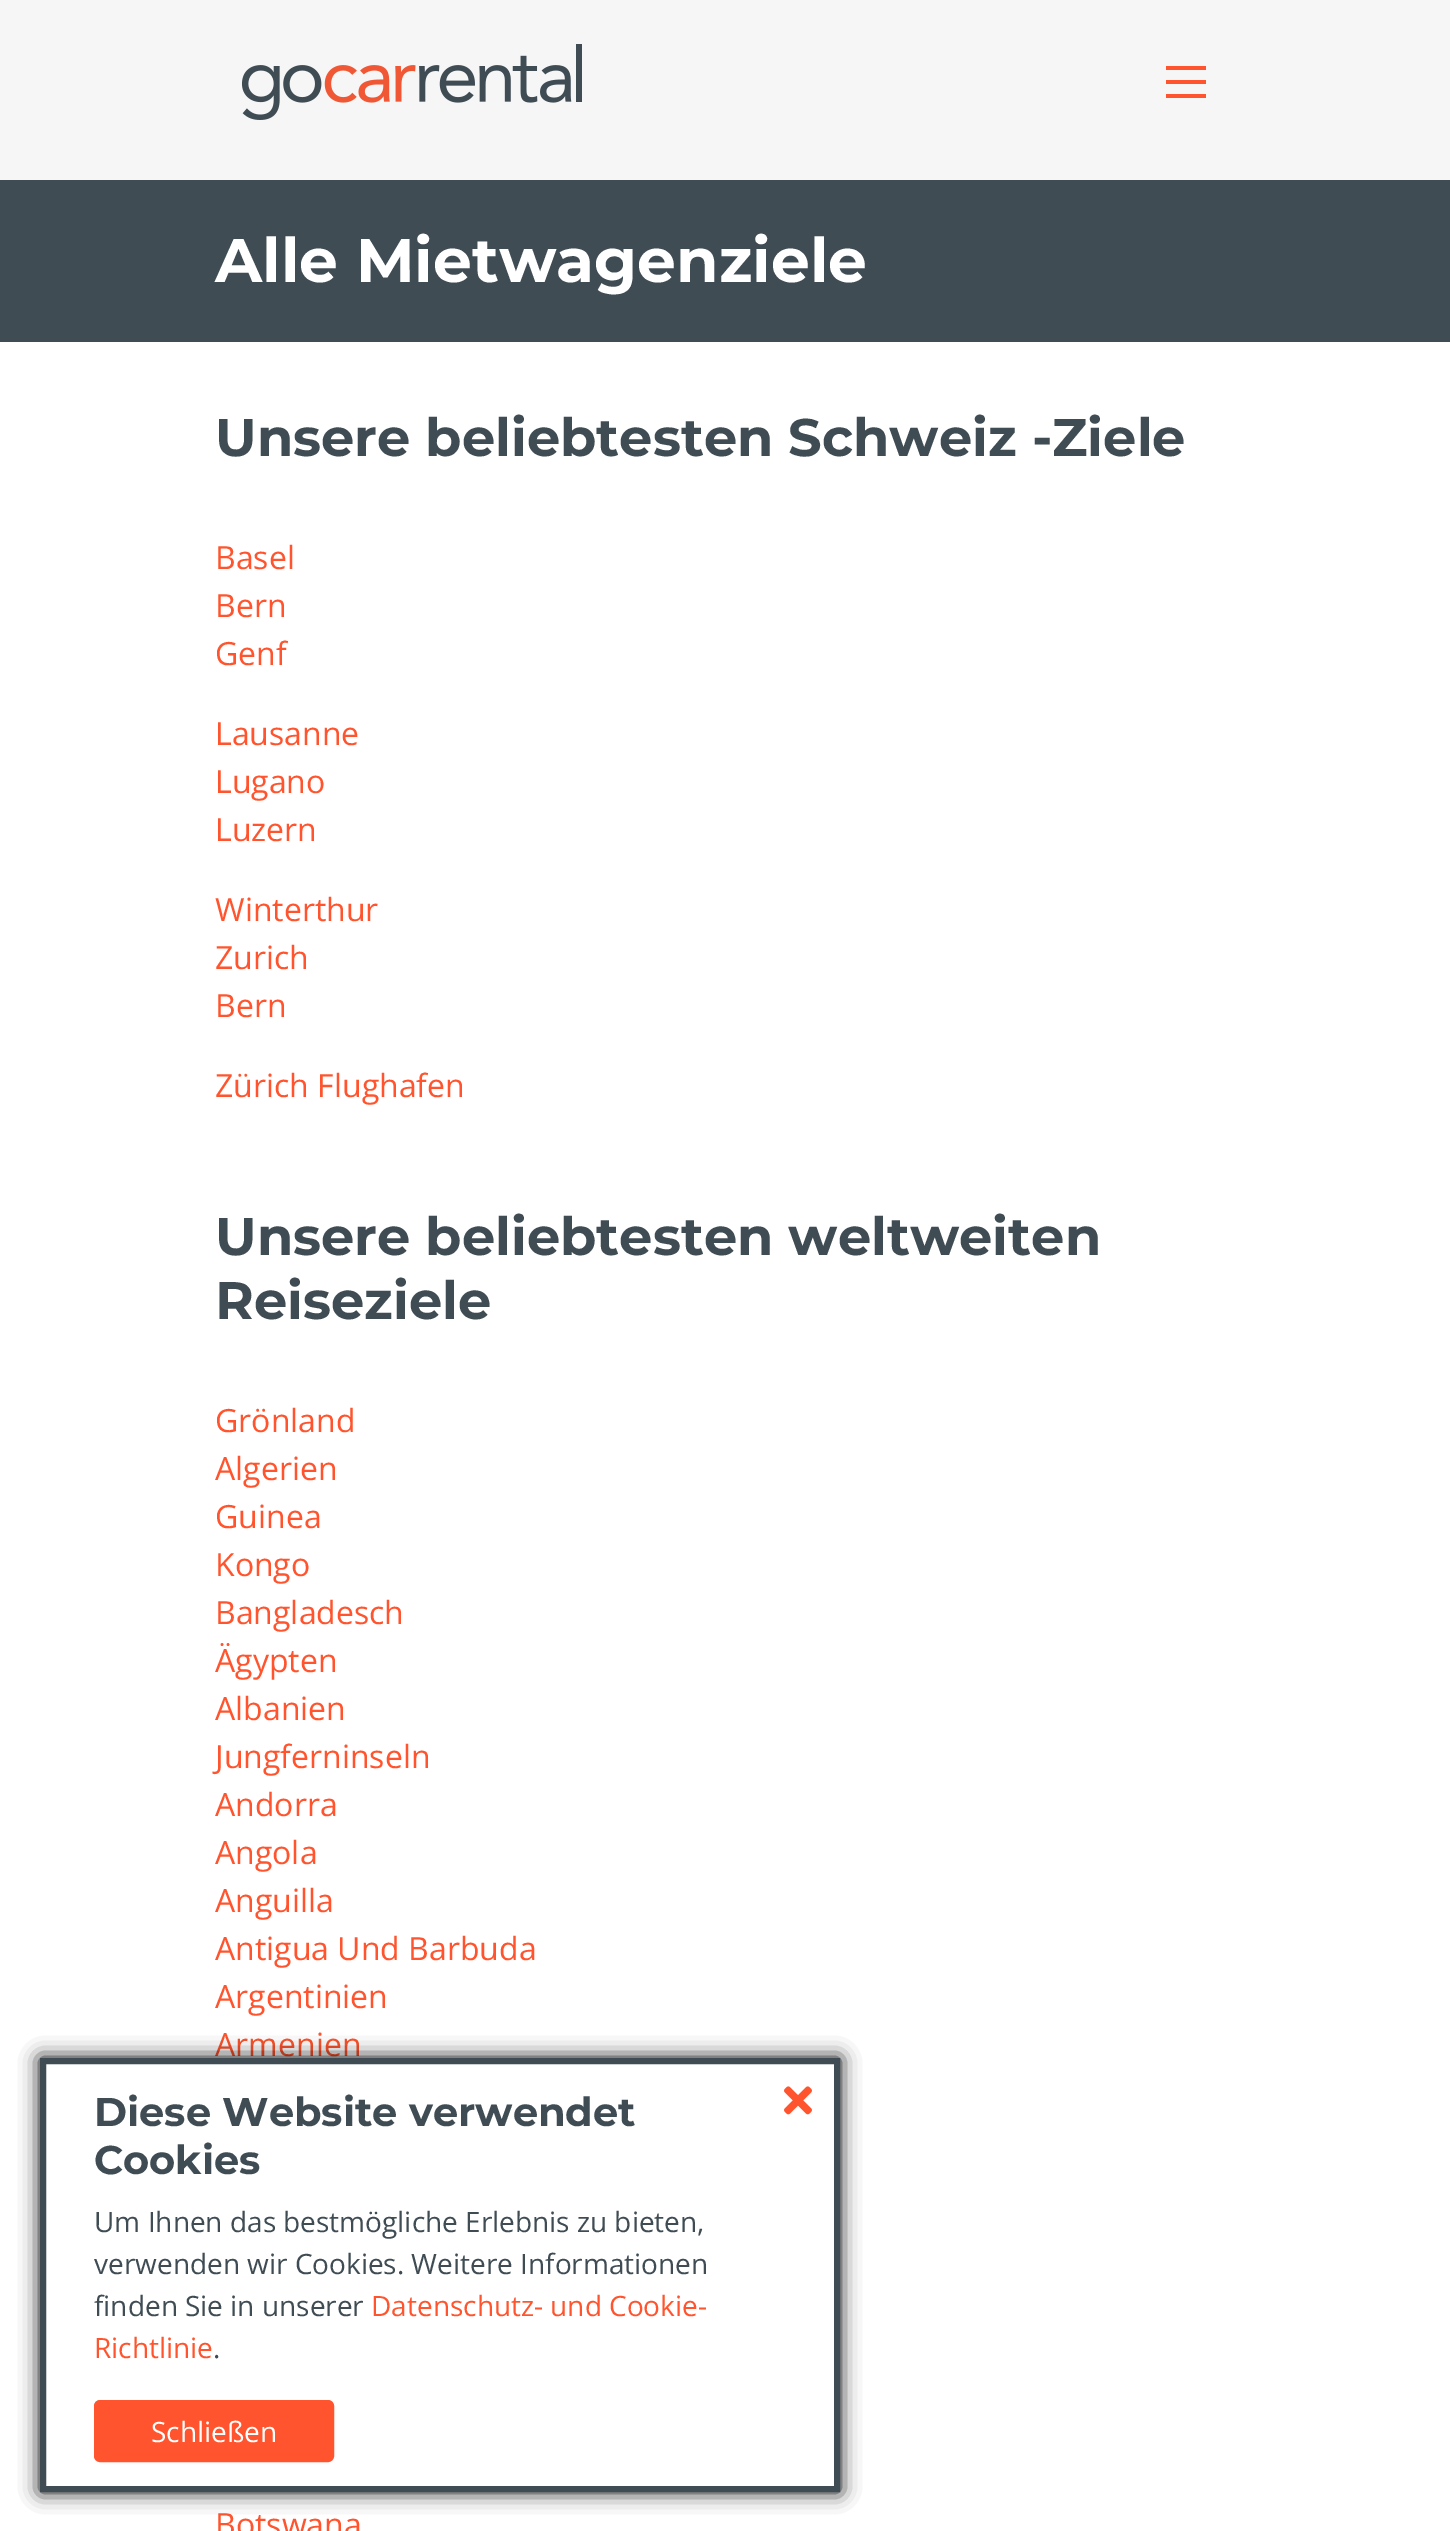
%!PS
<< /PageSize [1450 2531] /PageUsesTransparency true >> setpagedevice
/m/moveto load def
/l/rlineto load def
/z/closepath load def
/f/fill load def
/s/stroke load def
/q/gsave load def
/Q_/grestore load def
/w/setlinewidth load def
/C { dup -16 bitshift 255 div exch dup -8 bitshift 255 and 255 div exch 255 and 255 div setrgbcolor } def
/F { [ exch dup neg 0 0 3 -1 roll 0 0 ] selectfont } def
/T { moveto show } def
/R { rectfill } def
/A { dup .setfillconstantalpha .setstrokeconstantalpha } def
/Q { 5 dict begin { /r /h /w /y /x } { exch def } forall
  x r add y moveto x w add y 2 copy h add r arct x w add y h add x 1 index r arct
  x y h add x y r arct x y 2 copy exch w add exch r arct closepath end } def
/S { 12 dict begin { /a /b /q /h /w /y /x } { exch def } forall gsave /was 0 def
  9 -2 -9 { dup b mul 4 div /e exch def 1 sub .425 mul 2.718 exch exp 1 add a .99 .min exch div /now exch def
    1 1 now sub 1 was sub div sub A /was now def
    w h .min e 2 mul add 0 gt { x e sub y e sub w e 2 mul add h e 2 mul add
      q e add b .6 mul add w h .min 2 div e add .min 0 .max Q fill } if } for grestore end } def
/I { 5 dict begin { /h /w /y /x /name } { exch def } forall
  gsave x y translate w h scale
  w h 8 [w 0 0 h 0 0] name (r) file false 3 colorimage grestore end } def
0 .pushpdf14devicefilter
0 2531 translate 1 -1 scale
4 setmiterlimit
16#FFFFFF C
0 0 1450 2531 R
16#F6F6F6 C
0 0 1450 180 R
(1.rgb) 241 44 341 76 I
16#FF542D C
1166 80 40 4 R
1166 66 40 4 R
1166 94 40 4 R
16#3F4C54 C
0 180 1450 162 R
/Montserrat-Thin 61.6 F
16#FFFFFF C
(Alle Mietwagenziele) 215 282 T
/Montserrat-Thin 52.75 F
16#3F4C54 C
(Unsere beliebtesten Schweiz -Ziele) 215 456 T
/OpenSans-Regular 32 F
16#FF542D C
(Basel) 215 569 T
(Bern) 215 617 T
(Genf) 215 665 T
(Lausanne) 215 745 T
(Lugano) 215 793 T
(Luzern) 215 841 T
(Winterthur) 215 921 T
(Zurich) 215 969 T
(Bern) 215 1017 T
(Zürich Flughafen) 215 1097 T
/Montserrat-Thin 52.75 F
16#3F4C54 C
(Unsere beliebtesten weltweiten) 215 1255 T
(Reiseziele) 215 1319 T
/OpenSans-Regular 32 F
16#FF542D C
(Grönland) 215 1432 T
(Algerien) 215 1480 T
(Guinea) 215 1528 T
(Kongo) 215 1576 T
(Bangladesch) 215 1624 T
(Ägypten) 215 1672 T
(Albanien) 215 1720 T
(Jungferninseln) 215 1768 T
(Andorra) 215 1816 T
(Angola) 215 1864 T
(Anguilla) 215 1912 T
(Antigua Und Barbuda) 215 1960 T
(Argentinien) 215 2008 T
(Armenien) 215 2056 T
(Botswana) 215 2536 T
16#000000 C
40 2058 800 434 0 10 1 S
16#FFFFFF C
43 2061 m 794 0 l 0 428 l -794 0 l z q f Q_
16#3F4C54 C
6 w
s
/Montserrat-Thin 40 F
(Diese Website verwendet) 94 2126 T
(Cookies) 94 2174 T
(2.rgb) 784 2086 28 29 I
/OpenSans-Regular 28 F
(Um Ihnen das bestmögliche Erlebnis zu bieten,) 94 2232 T
(verwenden wir Cookies. Weitere Informationen) 94 2274 T
(finden Sie in unserer) 94 2316 T
16#FF542D C
(Datenschutz- und Cookie-) 371 2316 T
(Richtlinie) 94 2358 T
16#3F4C54 C
(.) 213 2358 T
16#FF542D C
95 2401 238 60 5 Q q f Q_
2 w
s
16#FFFFFF C
(Schließen) 151 2442 T
.poppdf14devicefilter showpage
